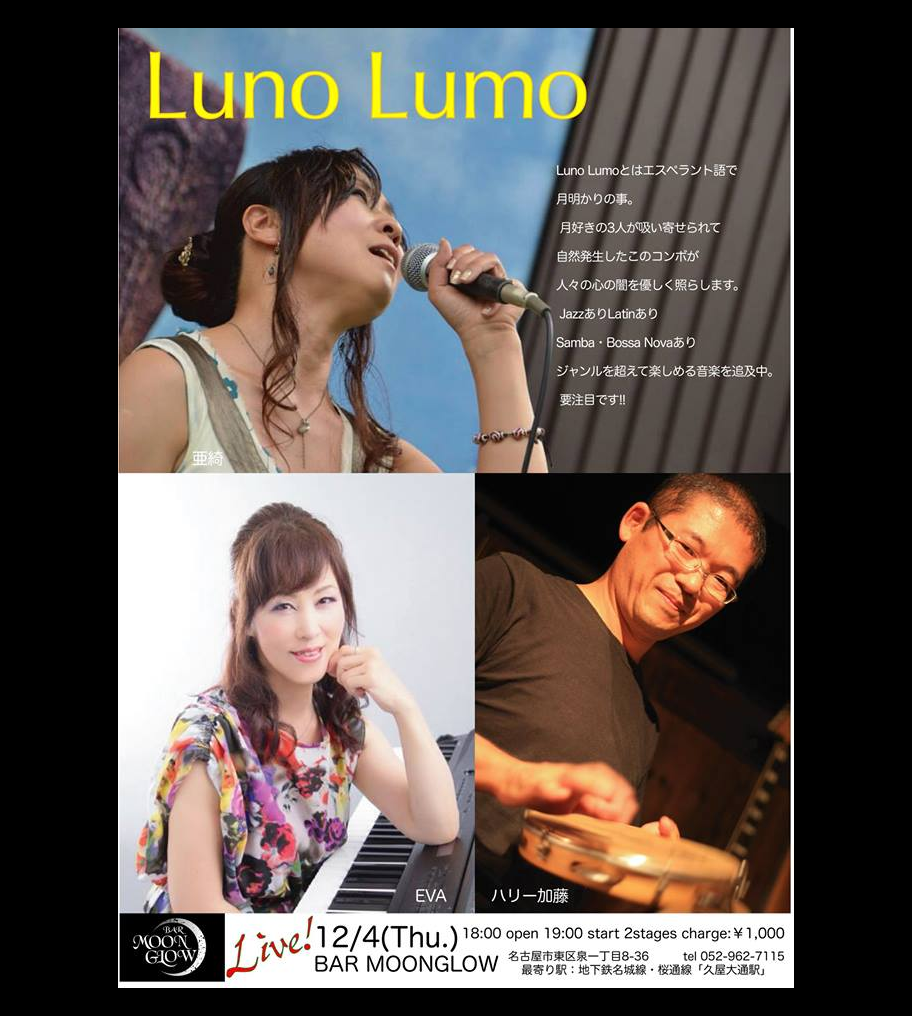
%!PS
<< /PageSize [912 1016] >> setpagedevice
/C { dup -16 bitshift 255 div exch dup -8 bitshift 255 and 255 div exch 255 and 255 div setrgbcolor } def
/R { rectfill } def
/I { 5 dict begin { /h /w /y /x /name } { exch def } forall
  gsave x y translate w h scale
  w h 8 [w 0 0 h 0 0] name (r) file false 3 colorimage grestore end } def
0 1016 translate 1 -1 scale
4 setmiterlimit
16#000000 C
0 0 912 1016 R
(1.rgb) 118 28 676 960 I
showpage
